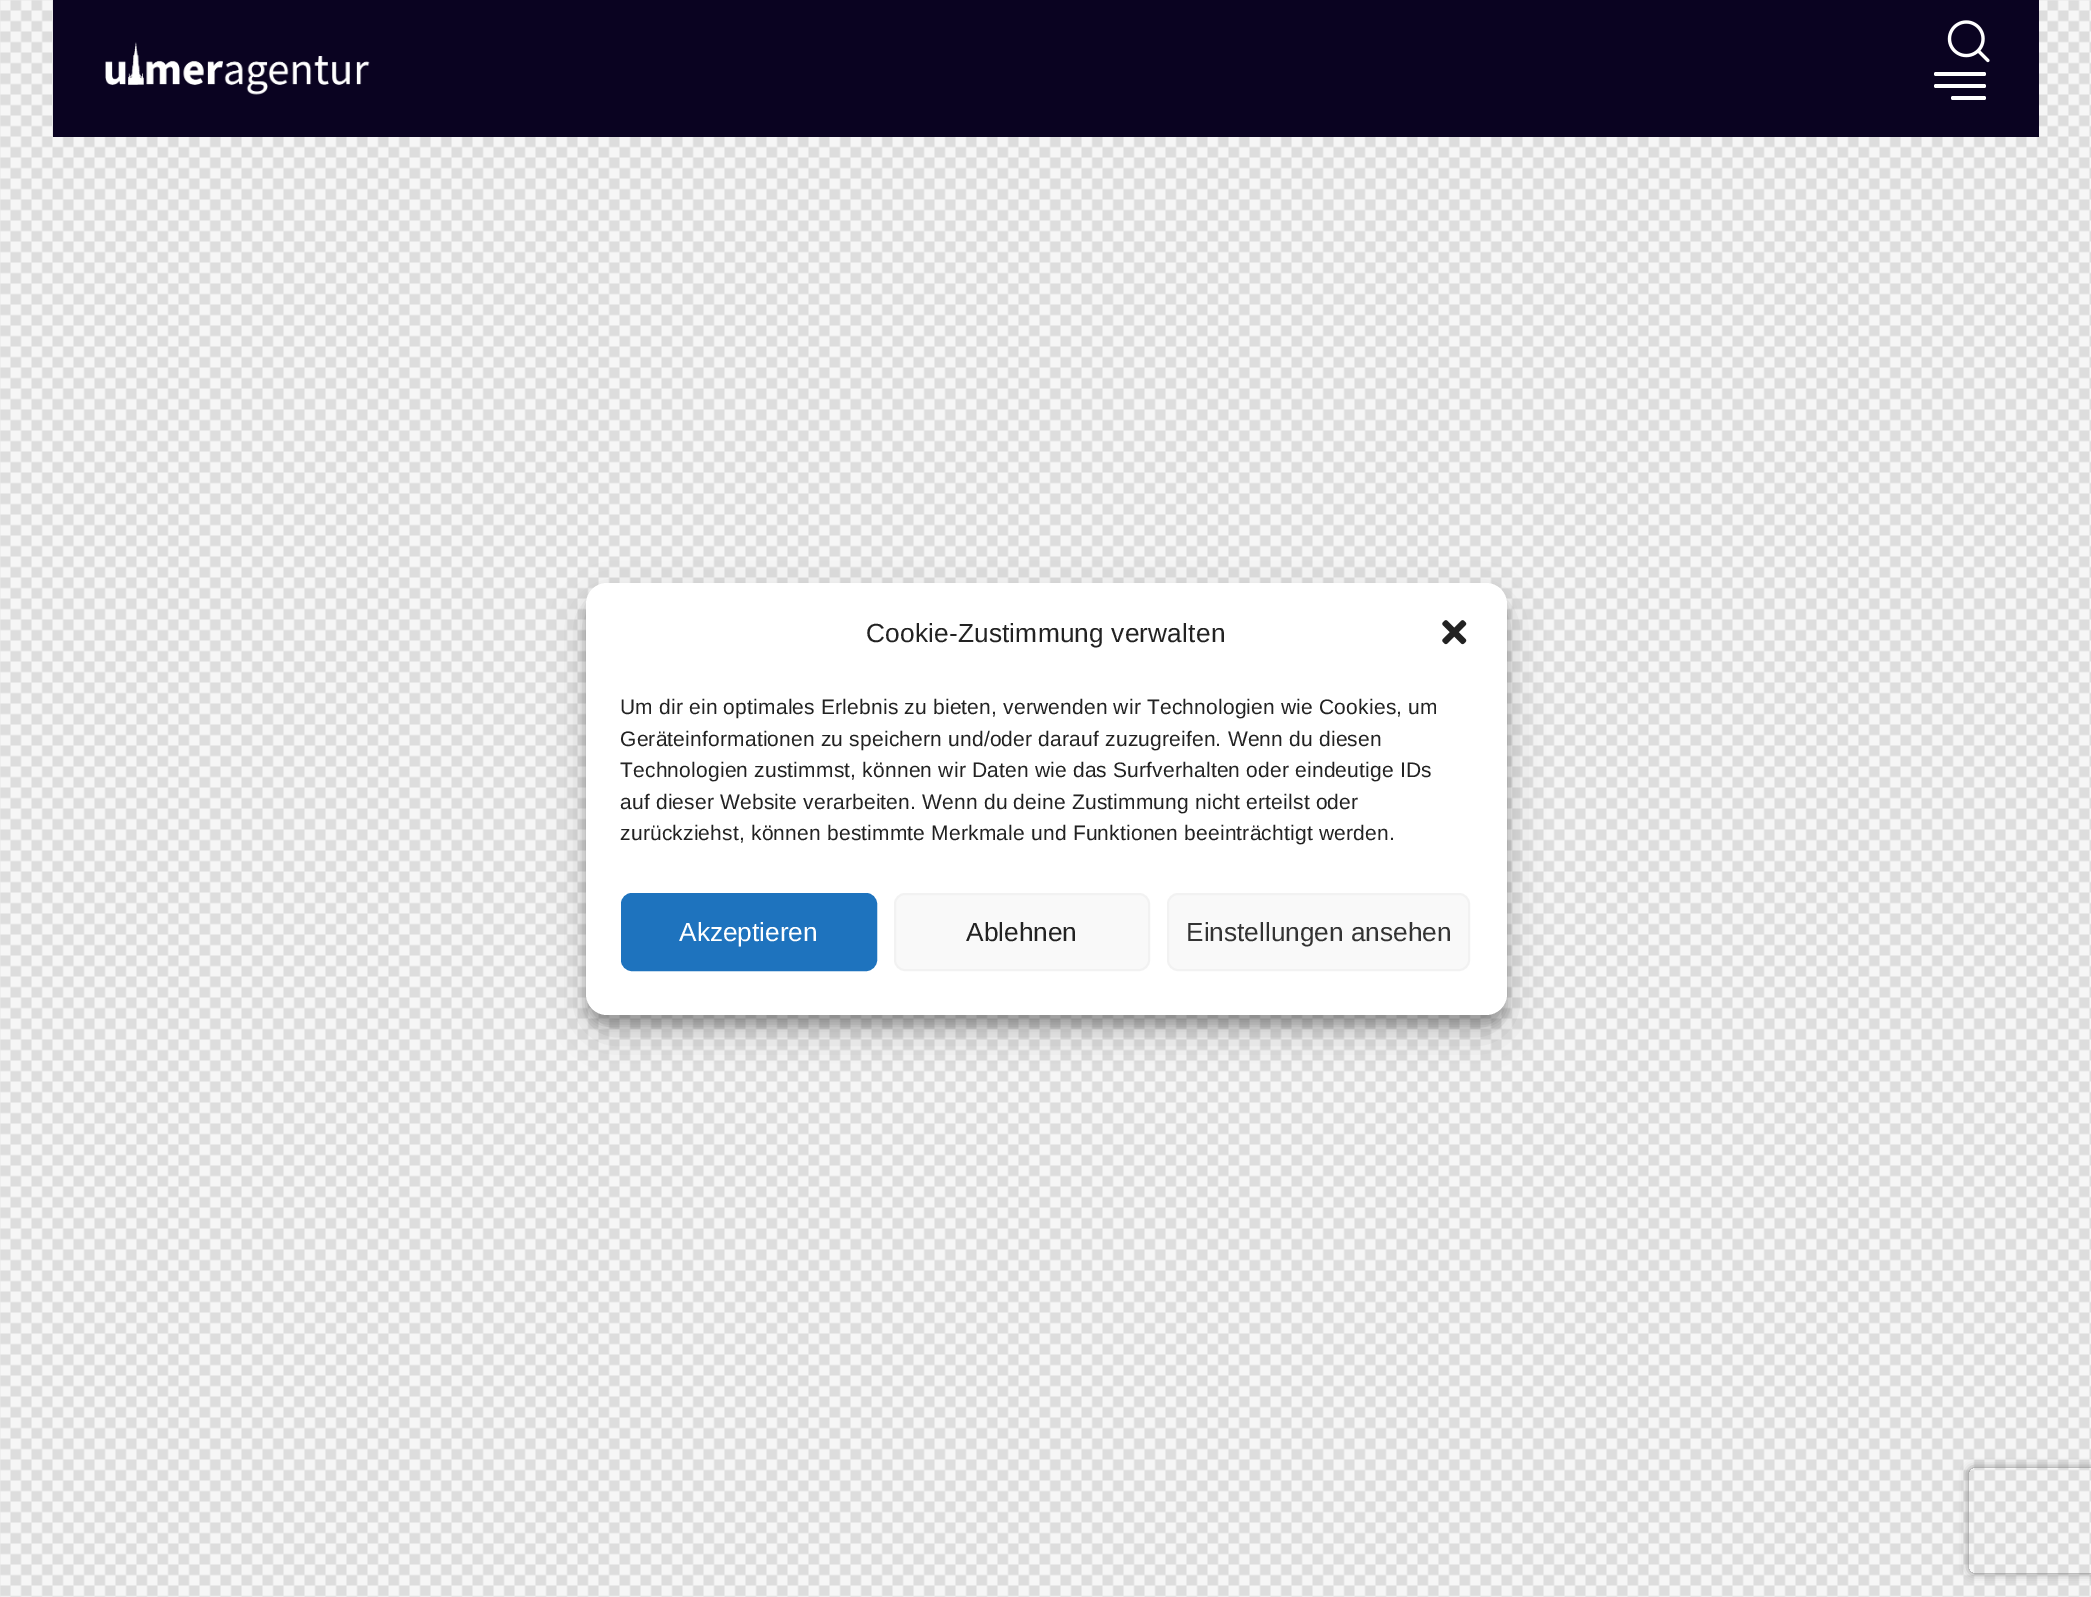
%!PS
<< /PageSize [2091 1597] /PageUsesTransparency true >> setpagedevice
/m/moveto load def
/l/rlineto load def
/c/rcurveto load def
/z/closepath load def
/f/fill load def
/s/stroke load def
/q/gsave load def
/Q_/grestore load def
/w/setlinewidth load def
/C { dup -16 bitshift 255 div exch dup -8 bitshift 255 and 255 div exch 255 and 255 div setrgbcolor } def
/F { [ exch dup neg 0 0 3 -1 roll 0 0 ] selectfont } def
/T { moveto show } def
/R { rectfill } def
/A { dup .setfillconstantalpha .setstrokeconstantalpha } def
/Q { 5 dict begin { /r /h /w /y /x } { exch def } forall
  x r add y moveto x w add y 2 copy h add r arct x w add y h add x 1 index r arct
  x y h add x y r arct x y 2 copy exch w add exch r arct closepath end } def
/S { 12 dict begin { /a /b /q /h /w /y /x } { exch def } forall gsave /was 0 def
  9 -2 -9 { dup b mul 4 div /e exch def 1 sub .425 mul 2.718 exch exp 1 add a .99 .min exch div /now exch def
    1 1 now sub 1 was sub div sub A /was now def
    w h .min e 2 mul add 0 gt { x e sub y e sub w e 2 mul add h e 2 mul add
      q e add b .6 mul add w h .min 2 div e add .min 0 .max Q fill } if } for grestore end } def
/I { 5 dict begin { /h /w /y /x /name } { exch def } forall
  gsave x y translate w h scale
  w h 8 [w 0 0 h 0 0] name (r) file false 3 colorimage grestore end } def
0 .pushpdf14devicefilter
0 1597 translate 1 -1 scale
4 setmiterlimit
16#FFFFFF C
0 0 2091 1597 R
(1.rgb) 0 0 2091 1597 I
16#0A0321 C
53 0 1986 137 R
(2.rgb) 105 42 265 53 I
(3.rgb) 1947 20 43 43 I
16#FFFFFF C
1934 84 52 4 2 Q f
1934 72 52 4 2 Q f
1951 96 35 4 2 Q f
16#000000 C
586 593 921 433 21 5 .23 S
586 600 921 433 21 17.5 .19 S
16#FFFFFF C
586 583 921 432 21 Q f
/LiberationSans-Regular 26.25 F
16#222222 C
866 642 m .18 0 (Cookie-Zustimmung verwalten) ashow
(4.rgb) 1442 620 25 25 I
/LiberationSans-Regular 21 F
620 714 m .18 0 (Um dir ein optimales Erlebnis zu bieten, verwenden wir Technologien wie Cookies, um) ashow
620 746 m .18 0 (Geräteinformationen zu speichern und/oder darauf zuzugreifen. Wenn du diesen) ashow
620 777 m .18 0 (Technologien zustimmst, können wir Daten wie das Surfverhalten oder eindeutige IDs) ashow
620 809 m .18 0 (auf dieser Website verarbeiten. Wenn du deine Zustimmung nicht erteilst oder) ashow
620 840 m .18 0 (zurückziehst, können bestimmte Merkmale und Funktionen beeinträchtigt werden.) ashow
16#1E73BE C
622 894 254 76 10 Q q f Q_
2 w
s
/LiberationSans-Regular 26.25 F
16#FFFFFF C
(Akzeptieren) 679 941 T
16#F9F9F9 C
895 894 254 76 10 Q q f Q_
16#F2F2F2 C
s
16#222222 C
(Ablehnen) 966 941 T
16#F9F9F9 C
1168 894 301 76 10 Q q f Q_
16#F2F2F2 C
s
16#333333 C
(Einstellungen ansehen) 1186 941 T
q
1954 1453 m 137 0 l 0 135 l -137 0 l z 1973 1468 m 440 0 l 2 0 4 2 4 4 c 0 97 l 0 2 -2 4 -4 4 c -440 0 l -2 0 -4 -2 -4 -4 c 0 -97 l 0 -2 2 -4 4 -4 c z eoclip newpath
16#808080 C
1969 1468 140 105 4 4.5 1 S
Q_
.poppdf14devicefilter showpage
